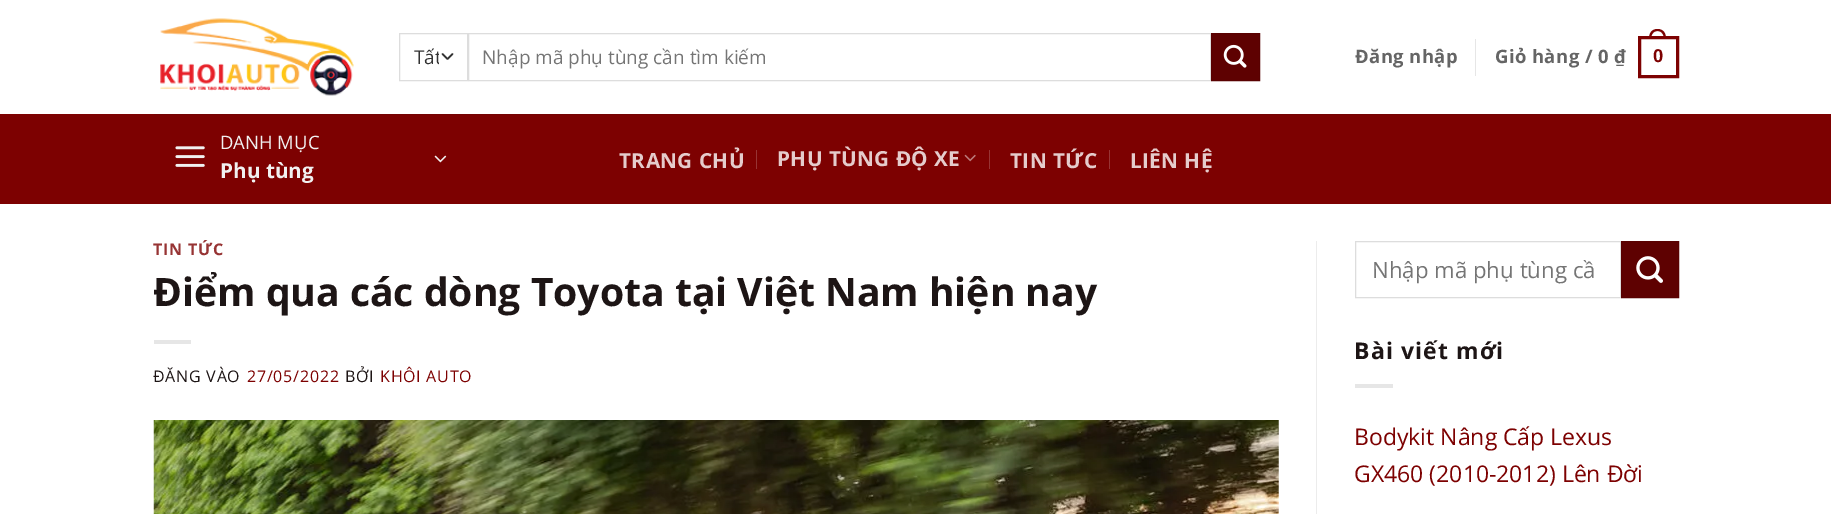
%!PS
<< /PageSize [1831 514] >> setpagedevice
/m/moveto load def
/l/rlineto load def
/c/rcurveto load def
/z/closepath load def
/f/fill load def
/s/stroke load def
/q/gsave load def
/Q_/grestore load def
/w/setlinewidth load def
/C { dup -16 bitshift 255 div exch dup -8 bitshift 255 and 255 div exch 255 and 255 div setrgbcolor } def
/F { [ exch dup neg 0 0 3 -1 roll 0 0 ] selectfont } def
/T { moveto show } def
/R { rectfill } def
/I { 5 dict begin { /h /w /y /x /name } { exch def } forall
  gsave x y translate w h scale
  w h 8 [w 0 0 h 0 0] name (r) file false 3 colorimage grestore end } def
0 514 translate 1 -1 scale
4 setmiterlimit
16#FFFFFF C
0 0 1831 514 R
(1.rgb) 160 18 194 78 I
16#333333 C
1.7 w
1 setlinecap
1 setlinejoin
442.5 54 m 5 5 l 5 -5 l s
16#DDDDDD C
1 w
0 setlinecap
0 setlinejoin
399.5 33.5 68 47 rectstroke
q
414 41 25 32 rectclip
/OpenSans-Regular 19 F
16#333333 C
(Tất) 414 64 T
Q_
468.5 33.5 742 47 rectstroke
/OpenSans-Regular 19 F
16#757575 C
(Nhập mã phụ tùng cần tìm kiếm) 482 64 T
16#5E0101 C
1211.5 33.5 m 48 0 l 0 47 l -48 0 l z q f Q_
16#590101 C
s
(2.rgb) 1223 44 24 24 I
/OpenSans-Bold 18.5 F
16#656565 C
1355 63 m .4 0 (Đăng nhập) ashow
16#E6E6E6 C
1475 39 1 37 R
16#656565 C
1495 63 m .4 0 (Giỏ hàng / 0 ₫) ashow
16#7D0101 C
3 w
1639.5 37.5 38 39 rectstroke
1657.5 29 m 6 0 8.5 4.5 8.5 10 c -17 0 l 0 -5.5 2.5 -10 8.5 -10 c z 1657.5 31 m 4.5 0 6.5 4 6.5 8 c -13 0 l 0 -4 2 -8 6.5 -8 c z eofill
/LiberationSans-Bold 18.5 F
1653 62 m .4 0 (0) ashow
0 114 1831 90 R
16#730303 C
154 114 1525 1 R
(3.rgb) 175 146 30 21 I
/OpenSans-Regular 18.5 F
16#F1F1F1 C
(DANH MỤC) 220 149 T
/OpenSans-Bold 20.75 F
(Phụ tùng) 220 178 T
(4.rgb) 434 155 13 8 I
16#E5CCCC C
619 168 m .4 0 (TRANG CHỦ) ashow
16#973434 C
756 150 1 19 R
16#E5CCCC C
777 166 m .4 0 (PHỤ TÙNG ĐỘ XE) ashow
(5.rgb) 964 154 12 8 I
16#973434 C
989 150 1 19 R
16#E5CCCC C
1010 168 m .4 0 (TIN TỨC) ashow
16#973434 C
1109 150 1 19 R
16#E5CCCC C
1130 168 m .4 0 (LIÊN HỆ) ashow
/OpenSans-Bold 16 F
16#973434 C
153 255 m .75 0 (TIN TỨC) ashow
/OpenSans-Bold 39.1 F
16#1D1515 C
(Điểm qua các dòng Toyota tại Việt Nam hiện nay) 153 306 T
16#E6E6E6 C
154 340 37 4 R
/OpenSans-Regular 16 F
16#1D1515 C
153 382 m .75 0 (ĐĂNG VÀO) ashow
16#7D0101 C
247 382 m .75 0 (27/05/2022) ashow
16#1D1515 C
345 382 m .75 0 (BỞI) ashow
16#7D0101 C
380 382 m .75 0 (KHÔI AUTO) ashow
(6.rgb) 153 420 1126 94 I
16#ECECEC C
1316 241 1 273 R
16#DDDDDD C
1 w
1355.5 241.5 265 56 rectstroke
/OpenSans-Regular 22.25 F
16#757575 C
(Nhập mã phụ tùng cầ) 1372 278 T
16#5E0101 C
1621.5 241.5 m 57 0 l 0 56 l -57 0 l z q f Q_
16#590101 C
s
(7.rgb) 1636 256 27 27 I
/OpenSans-Bold 23 F
16#1D1515 C
1354 359 m 1.1 0 (Bài viết mới) ashow
16#E6E6E6 C
1355 384 38 4 R
/OpenSans-Regular 23 F
16#7D0101 C
(Bodykit Nâng Cấp Lexus) 1354 445 T
(GX460 \(2010-2012\) Lên Đời) 1354 482 T
showpage
